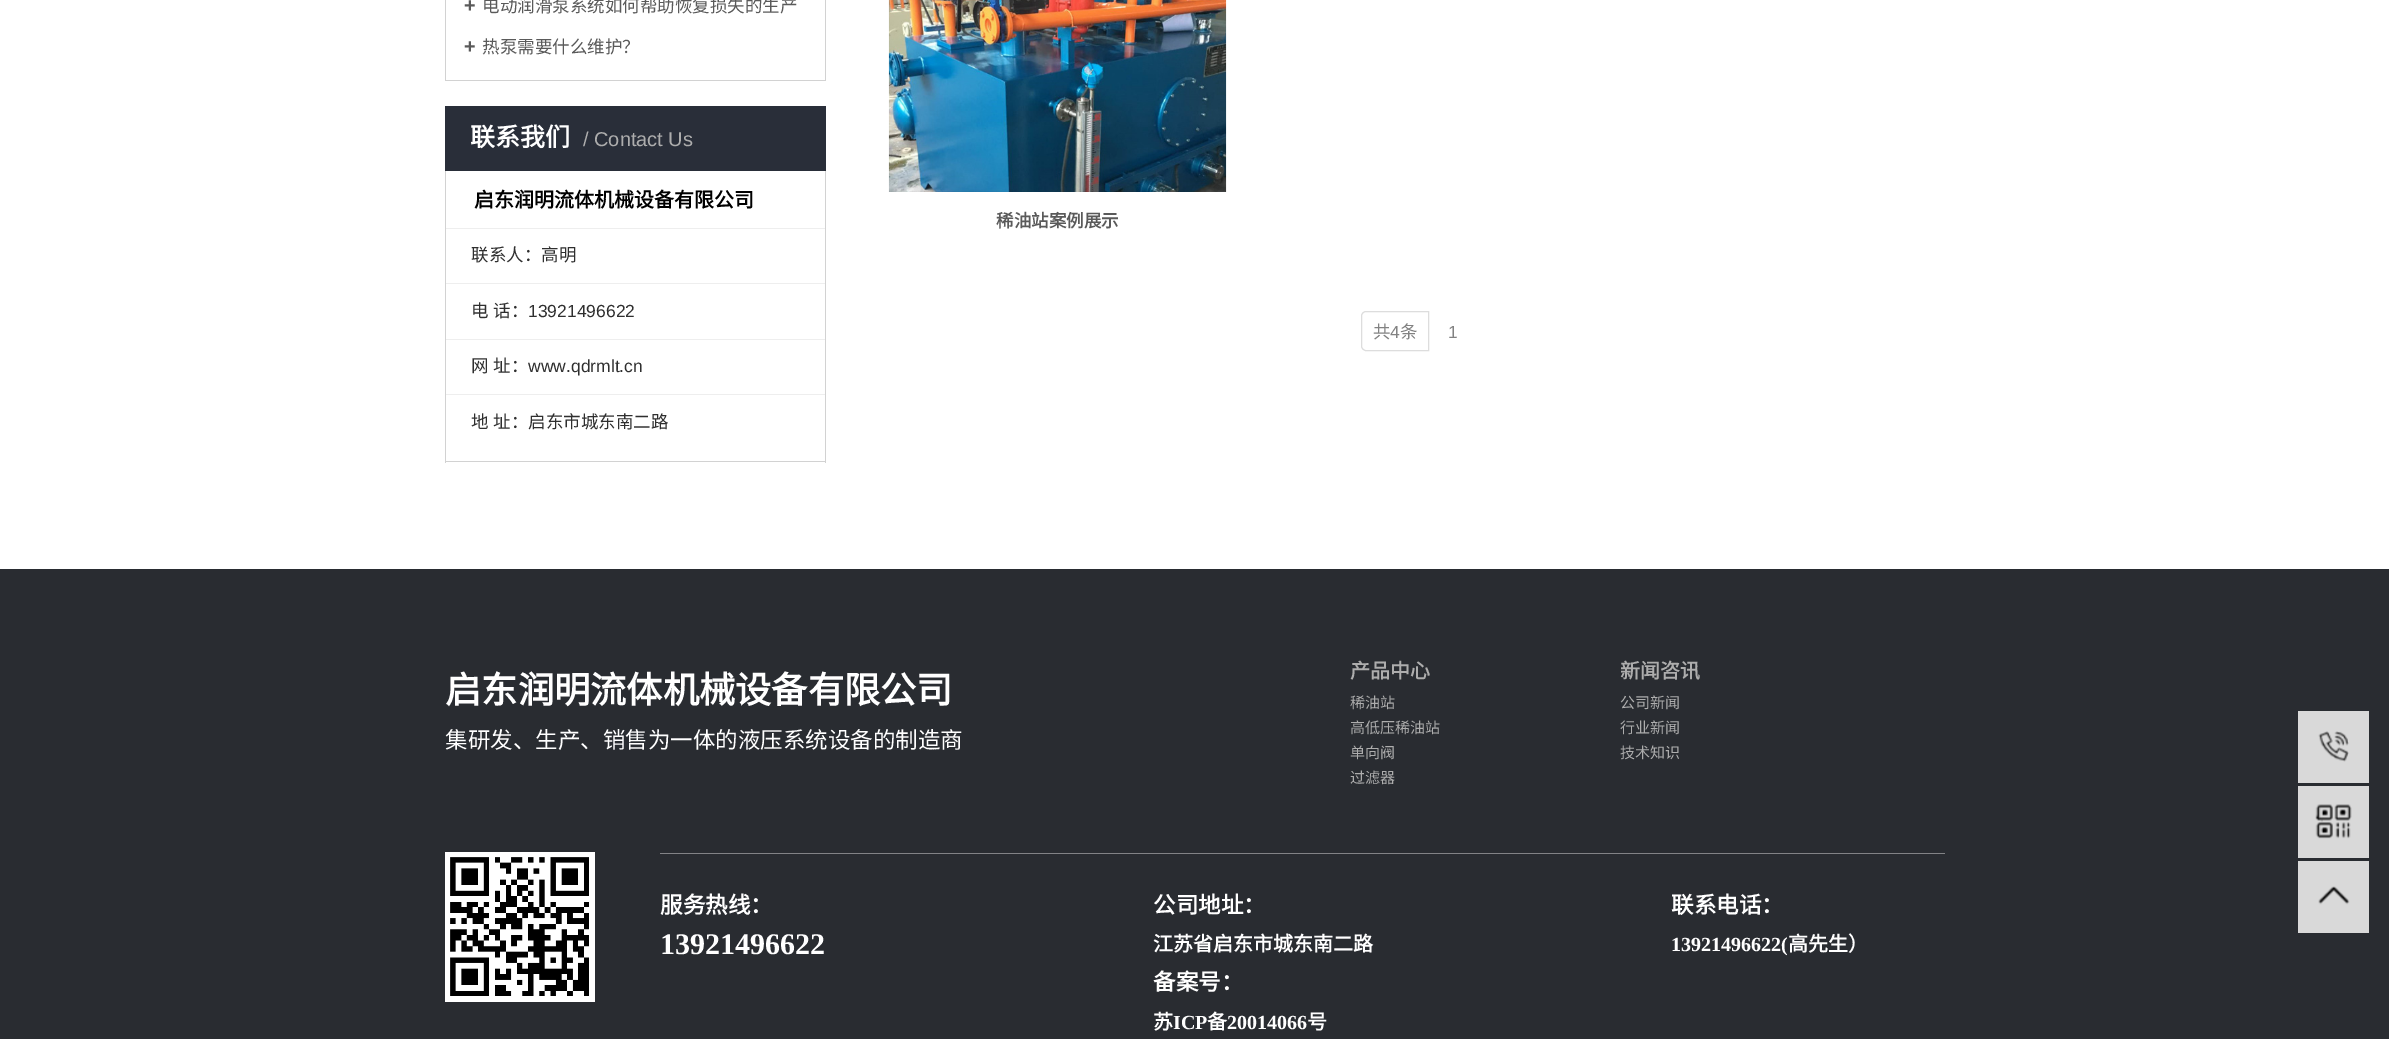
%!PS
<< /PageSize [2389 1039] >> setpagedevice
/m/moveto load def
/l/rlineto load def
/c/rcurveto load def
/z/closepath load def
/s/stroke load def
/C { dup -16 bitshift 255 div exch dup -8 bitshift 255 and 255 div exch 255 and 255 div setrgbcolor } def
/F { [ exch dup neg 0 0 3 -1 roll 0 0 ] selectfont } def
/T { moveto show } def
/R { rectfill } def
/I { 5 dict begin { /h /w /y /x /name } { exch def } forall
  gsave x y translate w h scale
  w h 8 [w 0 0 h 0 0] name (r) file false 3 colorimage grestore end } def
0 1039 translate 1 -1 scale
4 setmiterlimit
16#FFFFFF C
0 0 2389 1039 R
16#D2D2D2 C
825 0 1 81 R
445 80 381 1 R
445 0 1 81 R
/LiberationSans-Bold 20 F
16#5A5A5A C
(+) 464 12 T
/NotoSansCJKSC-Regular 17.5 F
(电动润滑泵系统如何帮助恢复损失的生产) 482 12 T
/LiberationSans-Bold 20 F
(+) 464 53 T
/NotoSansCJKSC-Regular 17.5 F
(热泵需要什么维护？) 482 53 T
16#292E39 C
445 106 381 65 R
/NotoSansCJKSC-Bold 25 F
16#FFFFFF C
(联系我们) 470 146 T
/LiberationSans-Regular 20 F
16#ADADAD C
(/) 583 146 T
(Contact Us) 594 146 T
16#D2D2D2 C
825 171 1 292 R
445 461 381 1 R
445 171 1 292 R
/NotoSansCJKSC-Bold 20 F
16#000000 C
(启东润明流体机械设备有限公司) 474 207 T
16#EEEEEE C
446 228 379 1 R
/NotoSansCJKSC-Regular 17.5 F
16#2F2F2F C
(联系人：高明) 471 261 T
16#EEEEEE C
446 283 379 1 R
16#2F2F2F C
471 317 m 1 0 32 (电 话：) widthshow
/LiberationSans-Regular 17.5 F
(13921496622) 528 317 T
16#EEEEEE C
446 339 379 1 R
/NotoSansCJKSC-Regular 17.5 F
16#2F2F2F C
471 372 m 1 0 32 (网 址：) widthshow
/LiberationSans-Regular 17.5 F
(www.qdrmlt.cn) 528 372 T
16#EEEEEE C
446 394 379 1 R
/NotoSansCJKSC-Regular 17.5 F
16#2F2F2F C
471 428 m 1 0 32 (地 址：启东市城东南二路) widthshow
(1.rgb) 888 0 339 192 I
/NotoSansCJKSC-Bold 17.5 F
16#5A5A5A C
(稀油站案例展示) 996 227 T
16#DDDDDD C
1366 311.5 m 62.5 0 l 0 39 l -62.5 0 l -2.5 0 -4.5 -2 -4.5 -4.5 c 0 -30 l 0 -2.5 2 -4.5 4.5 -4.5 c z s
/NotoSansCJKSC-Regular 17.5 F
16#828282 C
(共) 1373 338 T
/LiberationSans-Regular 17.5 F
(4) 1390 338 T
/NotoSansCJKSC-Regular 17.5 F
(条) 1400 338 T
/LiberationSans-Regular 17.5 F
(1) 1448 338 T
16#292C31 C
0 569 2389 470 R
/NotoSansCJKSC-Bold 36.25 F
16#FFFFFF C
(启东润明流体机械设备有限公司) 445 703 T
/NotoSansCJKSC-Regular 22.5 F
(集研发、生产、销售为一体的液压系统设备的制造商) 445 748 T
/NotoSansCJKSC-Bold 20 F
16#ADADAD C
(产品中心) 1350 678 T
/NotoSansCJKSC-Regular 15 F
(稀油站) 1350 708 T
(高低压稀油站) 1350 733 T
(单向阀) 1350 758 T
(过滤器) 1350 783 T
/NotoSansCJKSC-Bold 20 F
(新闻咨讯) 1620 678 T
/NotoSansCJKSC-Regular 15 F
(公司新闻) 1620 708 T
(行业新闻) 1620 733 T
(技术知识) 1620 758 T
(2.rgb) 445 852 150 150 I
16#828386 C
660 853 1285 1 R
/NotoSansCJKSC-Bold 22.5 F
16#FFFFFF C
(服务热线：) 660 913 T
/LiberationSerif-Bold 30 F
(13921496622) 660 954 T
/NotoSansCJKSC-Bold 22.5 F
(公司地址：) 1153 913 T
/NotoSansCJKSC-Bold 20 F
(江苏省启东市城东南二路) 1153 951 T
/NotoSansCJKSC-Bold 22.5 F
(备案号：) 1153 990 T
/NotoSansCJKSC-Bold 20 F
(苏) 1153 1029 T
/LiberationSerif-Bold 20 F
(ICP) 1173 1029 T
/NotoSansCJKSC-Bold 20 F
(备) 1207 1029 T
/LiberationSerif-Bold 20 F
(20014066) 1227 1029 T
/NotoSansCJKSC-Bold 20 F
(号) 1307 1029 T
/NotoSansCJKSC-Bold 22.5 F
(联系电话：) 1671 913 T
/LiberationSerif-Bold 20 F
(13921496622\() 1671 951 T
/NotoSansCJKSC-Bold 20 F
(高先生）) 1788 951 T
16#D9D9D9 C
2298 711 71 72 R
(3.rgb) 2318 731 31 31 I
2298 786 71 72 R
(4.rgb) 2315 804 37 35 I
2298 861 71 72 R
(5.rgb) 2318 886 32 19 I
showpage
